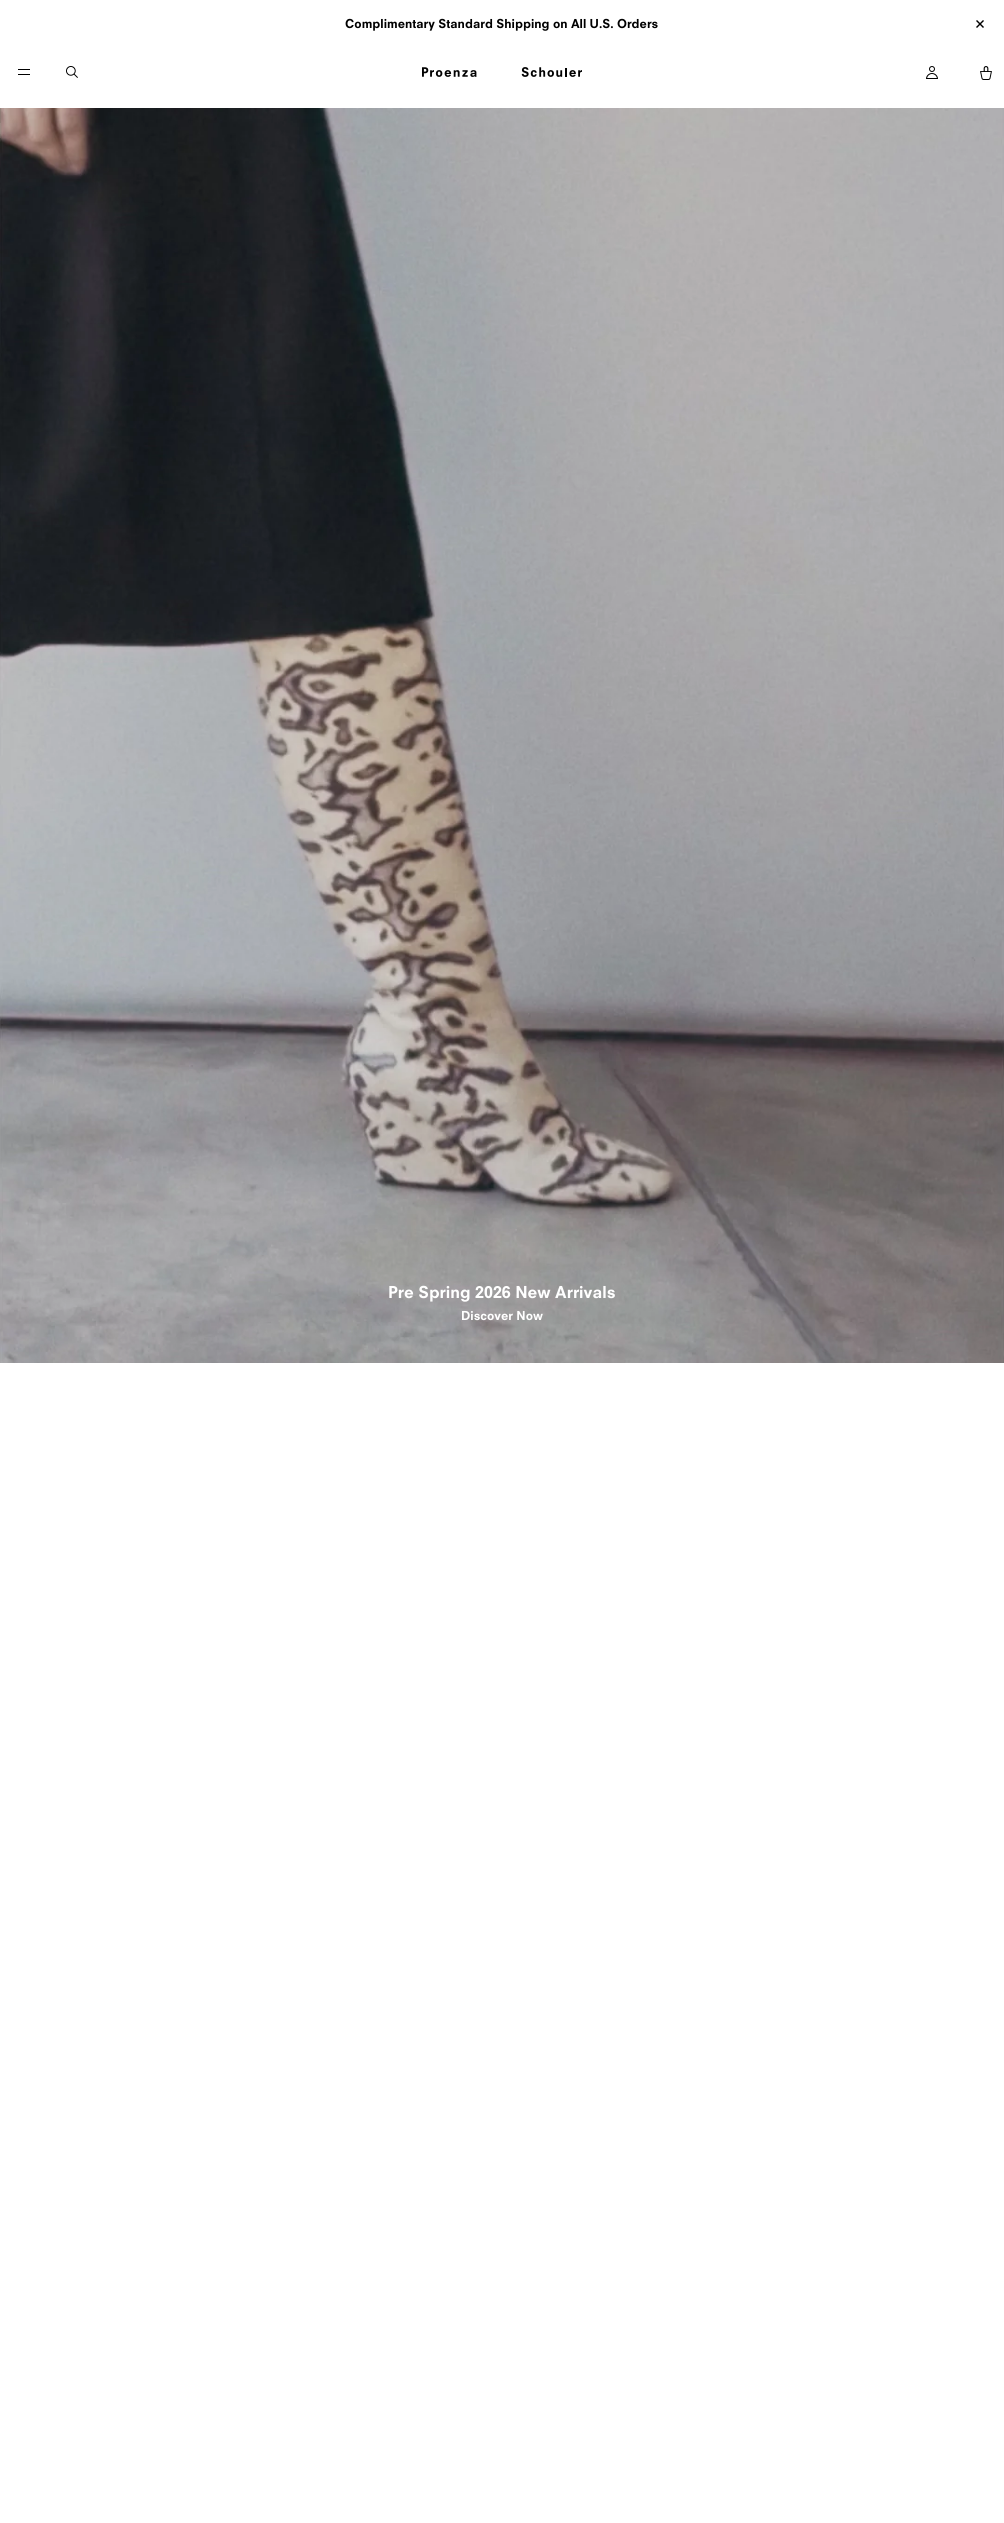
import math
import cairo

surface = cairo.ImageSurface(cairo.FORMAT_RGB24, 1004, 2523)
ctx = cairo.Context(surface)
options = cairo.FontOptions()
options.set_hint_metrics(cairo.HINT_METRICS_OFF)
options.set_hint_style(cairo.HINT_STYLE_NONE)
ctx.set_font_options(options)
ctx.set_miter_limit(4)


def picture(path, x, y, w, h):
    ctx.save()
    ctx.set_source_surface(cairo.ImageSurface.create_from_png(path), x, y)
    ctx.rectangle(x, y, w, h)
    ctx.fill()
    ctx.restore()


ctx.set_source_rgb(1, 1, 1)
ctx.paint()
ctx.select_font_face("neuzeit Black")
ctx.set_font_size(12)
ctx.set_source_rgb(0, 0, 0)
ctx.move_to(345, 28)
ctx.show_text("Complimentary Standard Shipping on All U.S. Orders")
ctx.new_path()
ctx.move_to(976, 27)
ctx.line_to(983, 20)
ctx.line_to(984, 21)
ctx.line_to(977, 28)
ctx.close_path()
ctx.fill()
ctx.new_path()
ctx.move_to(977, 20)
ctx.line_to(984, 27)
ctx.line_to(983, 28)
ctx.line_to(976, 21)
ctx.close_path()
ctx.fill()
ctx.rectangle(18, 69, 12, 1)
ctx.fill()
ctx.rectangle(18, 74, 12, 1)
ctx.fill()
picture("img1.png", 66, 66, 12, 12)
picture("img2.png", 422, 67, 160, 10)
picture("img3.png", 926, 66, 12, 13)
picture("img4.png", 980, 66, 12, 14)
picture("img5.png", 0, 108, 1004, 1255)
ctx.set_font_size(16)
ctx.set_source_rgb(1, 1, 1)
ctx.move_to(388, 1298)
ctx.show_text("Pre Spring 2026 New Arrivals")
ctx.set_font_size(12)
ctx.move_to(461, 1320)
ctx.show_text("Discover Now")
surface.write_to_png("page.png")
